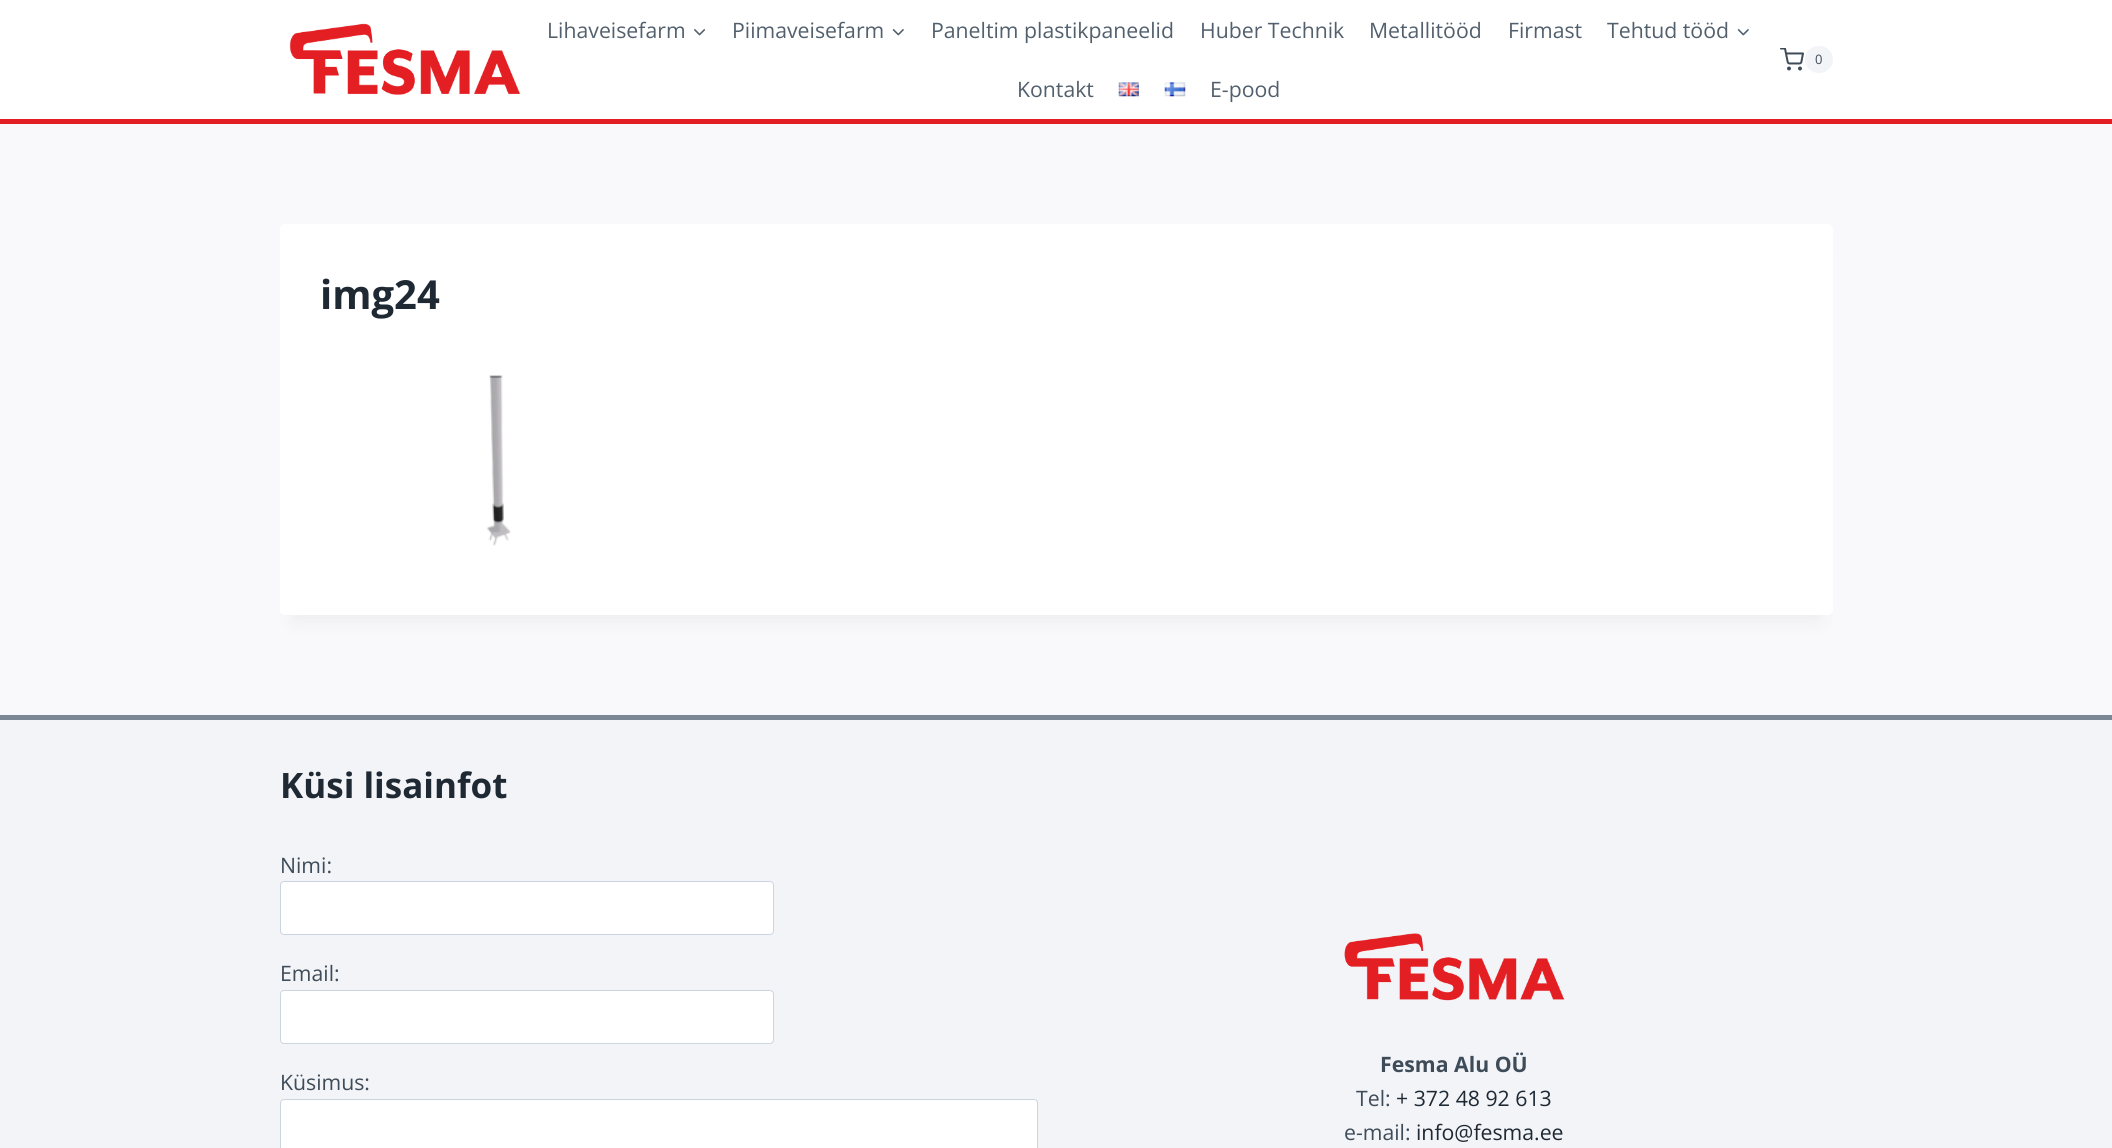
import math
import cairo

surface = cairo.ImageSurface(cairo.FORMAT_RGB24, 2112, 1148)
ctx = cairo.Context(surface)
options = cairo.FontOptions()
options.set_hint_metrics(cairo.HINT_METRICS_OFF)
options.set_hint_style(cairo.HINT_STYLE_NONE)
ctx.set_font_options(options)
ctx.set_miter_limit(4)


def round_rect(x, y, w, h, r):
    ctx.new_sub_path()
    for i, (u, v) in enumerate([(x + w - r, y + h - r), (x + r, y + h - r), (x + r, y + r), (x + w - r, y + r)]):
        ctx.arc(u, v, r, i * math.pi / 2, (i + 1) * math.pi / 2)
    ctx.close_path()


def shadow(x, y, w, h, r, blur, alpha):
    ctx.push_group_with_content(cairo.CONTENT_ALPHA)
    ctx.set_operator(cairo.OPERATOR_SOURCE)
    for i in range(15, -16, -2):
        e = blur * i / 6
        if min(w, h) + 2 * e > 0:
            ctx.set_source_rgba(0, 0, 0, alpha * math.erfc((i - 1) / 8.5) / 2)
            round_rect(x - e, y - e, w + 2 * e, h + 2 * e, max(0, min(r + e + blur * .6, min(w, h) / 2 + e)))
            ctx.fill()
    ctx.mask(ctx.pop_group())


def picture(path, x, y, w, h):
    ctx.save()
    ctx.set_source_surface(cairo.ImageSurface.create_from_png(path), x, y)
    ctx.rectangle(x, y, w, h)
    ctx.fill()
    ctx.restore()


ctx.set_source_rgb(0.976, 0.976, 0.984)
ctx.paint()
ctx.set_source_rgb(1, 1, 1)
ctx.rectangle(0, 0, 2112, 119)
ctx.fill()
ctx.set_source_rgb(0.89, 0.122, 0.141)
ctx.rectangle(0, 119, 2112, 5)
ctx.fill()
picture("img1.png", 289, 23, 232, 72)
ctx.select_font_face("Open Sans")
ctx.set_font_size(21.25)
ctx.set_source_rgb(0.322, 0.376, 0.427)
ctx.move_to(547, 38)
ctx.show_text("Lihaveisefarm")
picture("img2.png", 694, 29, 12, 7)
ctx.move_to(732, 38)
ctx.show_text("Piimaveisefarm")
picture("img3.png", 892, 29, 12, 7)
ctx.move_to(931, 38)
ctx.show_text("Paneltim plastikpaneelid")
ctx.move_to(1200, 38)
ctx.show_text("Huber Technik")
ctx.move_to(1369, 38)
ctx.show_text("Metallitööd")
ctx.move_to(1508, 38)
ctx.show_text("Firmast")
ctx.move_to(1607, 38)
ctx.show_text("Tehtud tööd")
picture("img3.png", 1737, 29, 12, 7)
ctx.move_to(1017, 97)
ctx.show_text("Kontakt")
picture("img4.png", 1118, 82, 21, 15)
picture("img5.png", 1164, 82, 22, 15)
ctx.move_to(1210, 97)
ctx.show_text("E-pood")
picture("img6.png", 1780, 48, 24, 23)
ctx.set_source_rgb(0.953, 0.957, 0.969)
round_rect(1805, 46, 28, 27, 13.5)
ctx.fill()
ctx.set_font_size(13)
ctx.set_source_rgb(0.243, 0.298, 0.349)
ctx.move_to(1815, 64)
ctx.show_text("0")
ctx.set_source_rgb(0, 0, 0)
shadow(293, 255, 1527, 366, 0, 9.5, 0.05)
ctx.set_source_rgb(1, 1, 1)
round_rect(280, 224, 1553, 391, 5)
ctx.fill()
ctx.select_font_face("Open Sans", cairo.FONT_SLANT_NORMAL, cairo.FONT_WEIGHT_BOLD)
ctx.set_font_size(40)
ctx.set_source_rgb(0.122, 0.161, 0.2)
ctx.move_to(320, 309)
ctx.show_text("img24")
picture("img7.png", 487, 375, 24, 171)
ctx.set_source_rgb(0.953, 0.957, 0.969)
ctx.rectangle(0, 720, 2112, 428)
ctx.fill()
ctx.set_source_rgb(0.482, 0.529, 0.58)
ctx.rectangle(0, 715, 2112, 5)
ctx.fill()
ctx.set_font_size(35)
ctx.set_source_rgb(0.122, 0.161, 0.2)
ctx.move_to(280, 798)
ctx.show_text("Küsi lisainfot")
ctx.select_font_face("Open Sans")
ctx.set_font_size(21.25)
ctx.set_source_rgb(0.243, 0.298, 0.349)
ctx.move_to(280, 873)
ctx.show_text("Nimi:")
ctx.set_source_rgb(1, 1, 1)
round_rect(280.5, 881.5, 493, 53, 3.5)
ctx.fill_preserve()
ctx.set_source_rgb(0.796, 0.835, 0.878)
ctx.set_line_width(1)
ctx.stroke()
ctx.set_source_rgb(0.243, 0.298, 0.349)
ctx.move_to(280, 981)
ctx.show_text("Email:")
ctx.set_source_rgb(1, 1, 1)
round_rect(280.5, 990.5, 493, 53, 3.5)
ctx.fill_preserve()
ctx.set_source_rgb(0.796, 0.835, 0.878)
ctx.stroke()
ctx.set_source_rgb(0.243, 0.298, 0.349)
ctx.move_to(280, 1090)
ctx.show_text("Küsimus:")
ctx.set_source_rgb(1, 1, 1)
round_rect(280.5, 1099.5, 757, 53, 3.5)
ctx.fill_preserve()
ctx.set_source_rgb(0.796, 0.835, 0.878)
ctx.stroke()
picture("img8.png", 1344, 933, 221, 68)
ctx.select_font_face("Open Sans", cairo.FONT_SLANT_NORMAL, cairo.FONT_WEIGHT_BOLD)
ctx.set_source_rgb(0.243, 0.298, 0.349)
ctx.move_to(1380, 1072)
ctx.show_text("Fesma Alu OÜ")
ctx.select_font_face("Open Sans")
ctx.move_to(1356, 1106)
ctx.show_text("Tel:")
ctx.set_source_rgb(0.122, 0.161, 0.2)
ctx.move_to(1396, 1106)
ctx.show_text("+ 372 48 92 613")
ctx.set_source_rgb(0.243, 0.298, 0.349)
ctx.move_to(1344, 1140)
ctx.show_text("e-mail:")
ctx.set_source_rgb(0.122, 0.161, 0.2)
ctx.move_to(1416, 1140)
ctx.show_text("info@fesma.ee")
surface.write_to_png("page.png")
